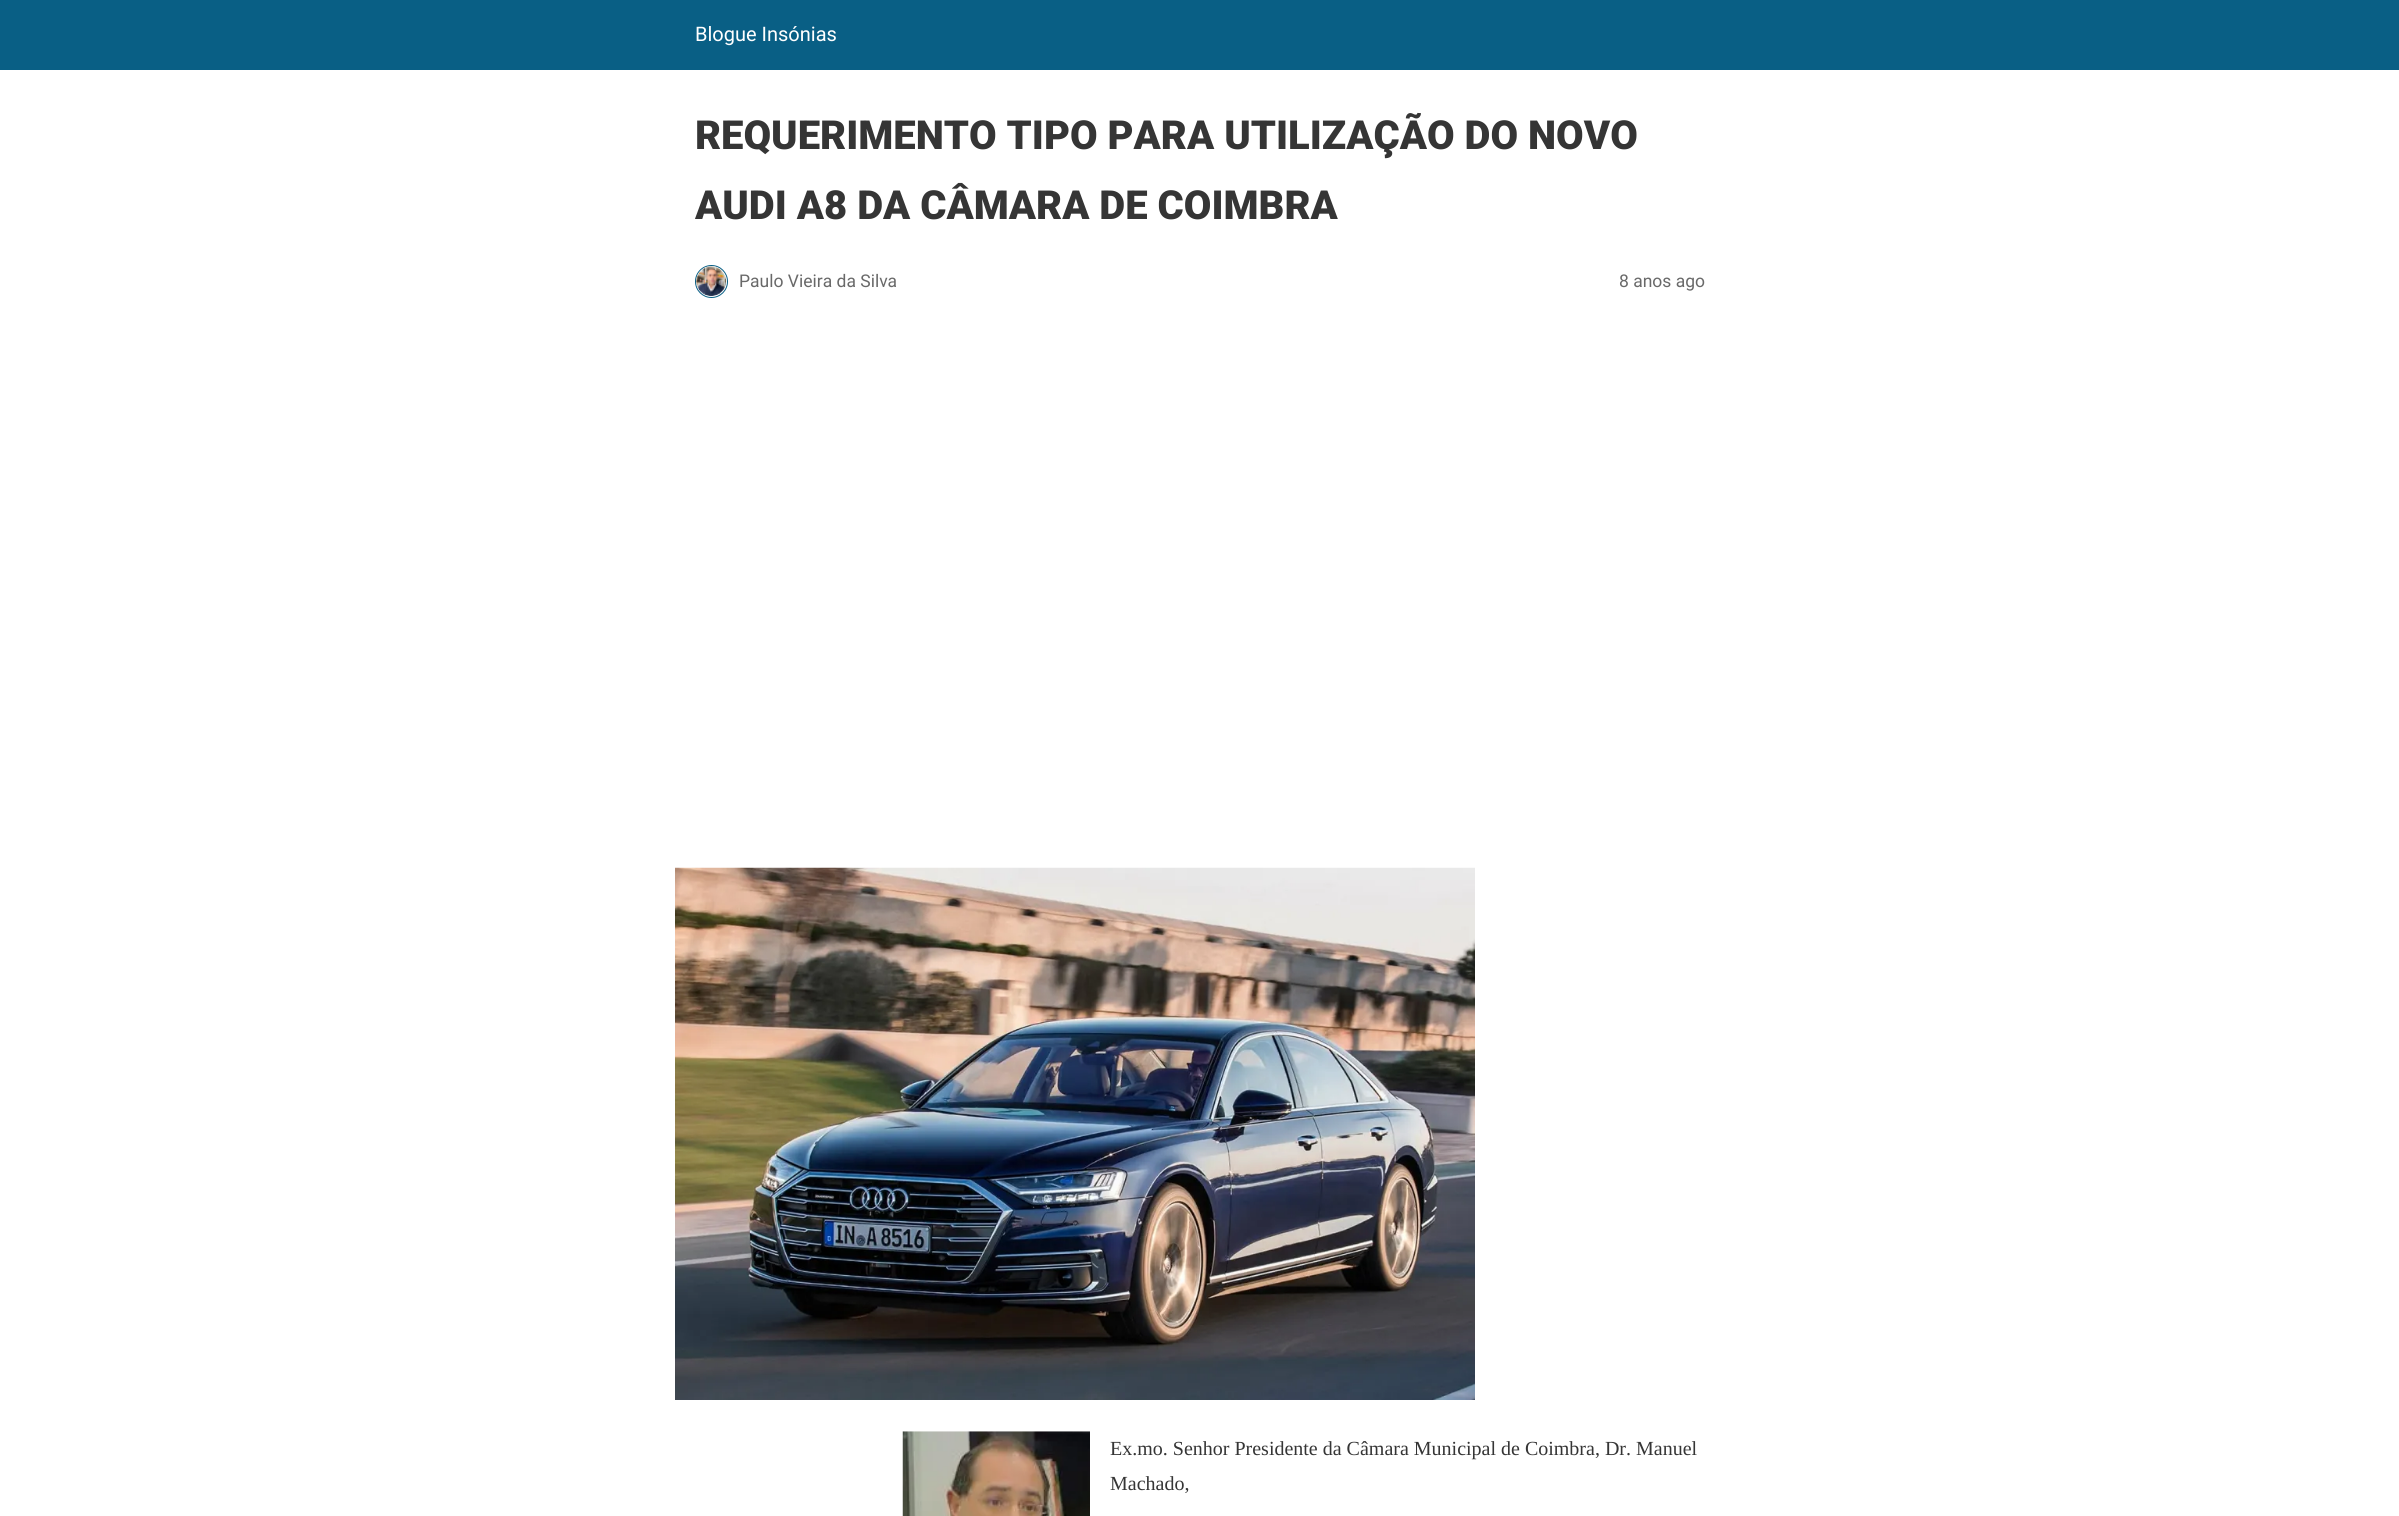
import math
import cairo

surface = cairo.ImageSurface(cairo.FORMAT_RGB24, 2399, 1516)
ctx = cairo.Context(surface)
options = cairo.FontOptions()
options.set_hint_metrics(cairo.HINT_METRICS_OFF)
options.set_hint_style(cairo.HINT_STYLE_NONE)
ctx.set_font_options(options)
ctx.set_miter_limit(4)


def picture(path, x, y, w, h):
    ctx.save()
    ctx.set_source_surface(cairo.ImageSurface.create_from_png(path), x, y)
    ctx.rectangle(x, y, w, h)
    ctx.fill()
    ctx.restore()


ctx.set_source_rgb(1, 1, 1)
ctx.paint()
ctx.set_source_rgb(0.039, 0.373, 0.522)
ctx.rectangle(0, 0, 2399, 70)
ctx.fill()
ctx.select_font_face("Roboto")
ctx.set_font_size(20)
ctx.set_source_rgb(1, 1, 1)
ctx.move_to(695, 41)
ctx.show_text("Blogue Insónias")
ctx.select_font_face("Roboto Black")
ctx.set_font_size(40)
ctx.set_source_rgb(0.208, 0.208, 0.208)
ctx.move_to(695, 149)
ctx.show_text("REQUERIMENTO TIPO PARA UTILIZAÇÃO DO NOVO")
ctx.move_to(695, 219)
ctx.show_text("AUDI A8 DA CÂMARA DE COIMBRA")
ctx.new_path()
ctx.arc(711.5, 281.5, 16, 0, 2 * math.pi)
ctx.set_source_rgb(0.039, 0.373, 0.522)
ctx.set_line_width(1)
ctx.stroke()
picture("img1.png", 696, 266, 31, 31)
ctx.select_font_face("Roboto")
ctx.set_font_size(17.5)
ctx.set_source_rgb(0.412, 0.412, 0.412)
ctx.move_to(739, 287)
ctx.show_text("Paulo Vieira da Silva")
ctx.move_to(1619, 287)
ctx.show_text("8 anos ago")
picture("img2.png", 675, 867, 800, 533)
picture("img3.png", 902, 1431, 188, 85)
ctx.select_font_face("Liberation Serif")
ctx.set_font_size(20)
ctx.set_source_rgb(0.208, 0.208, 0.208)
ctx.move_to(1110, 1455)
ctx.show_text("Ex.mo. Senhor Presidente da Câmara Municipal de Coimbra, Dr. Manuel")
ctx.move_to(1110, 1490)
ctx.show_text("Machado,")
surface.write_to_png("page.png")
